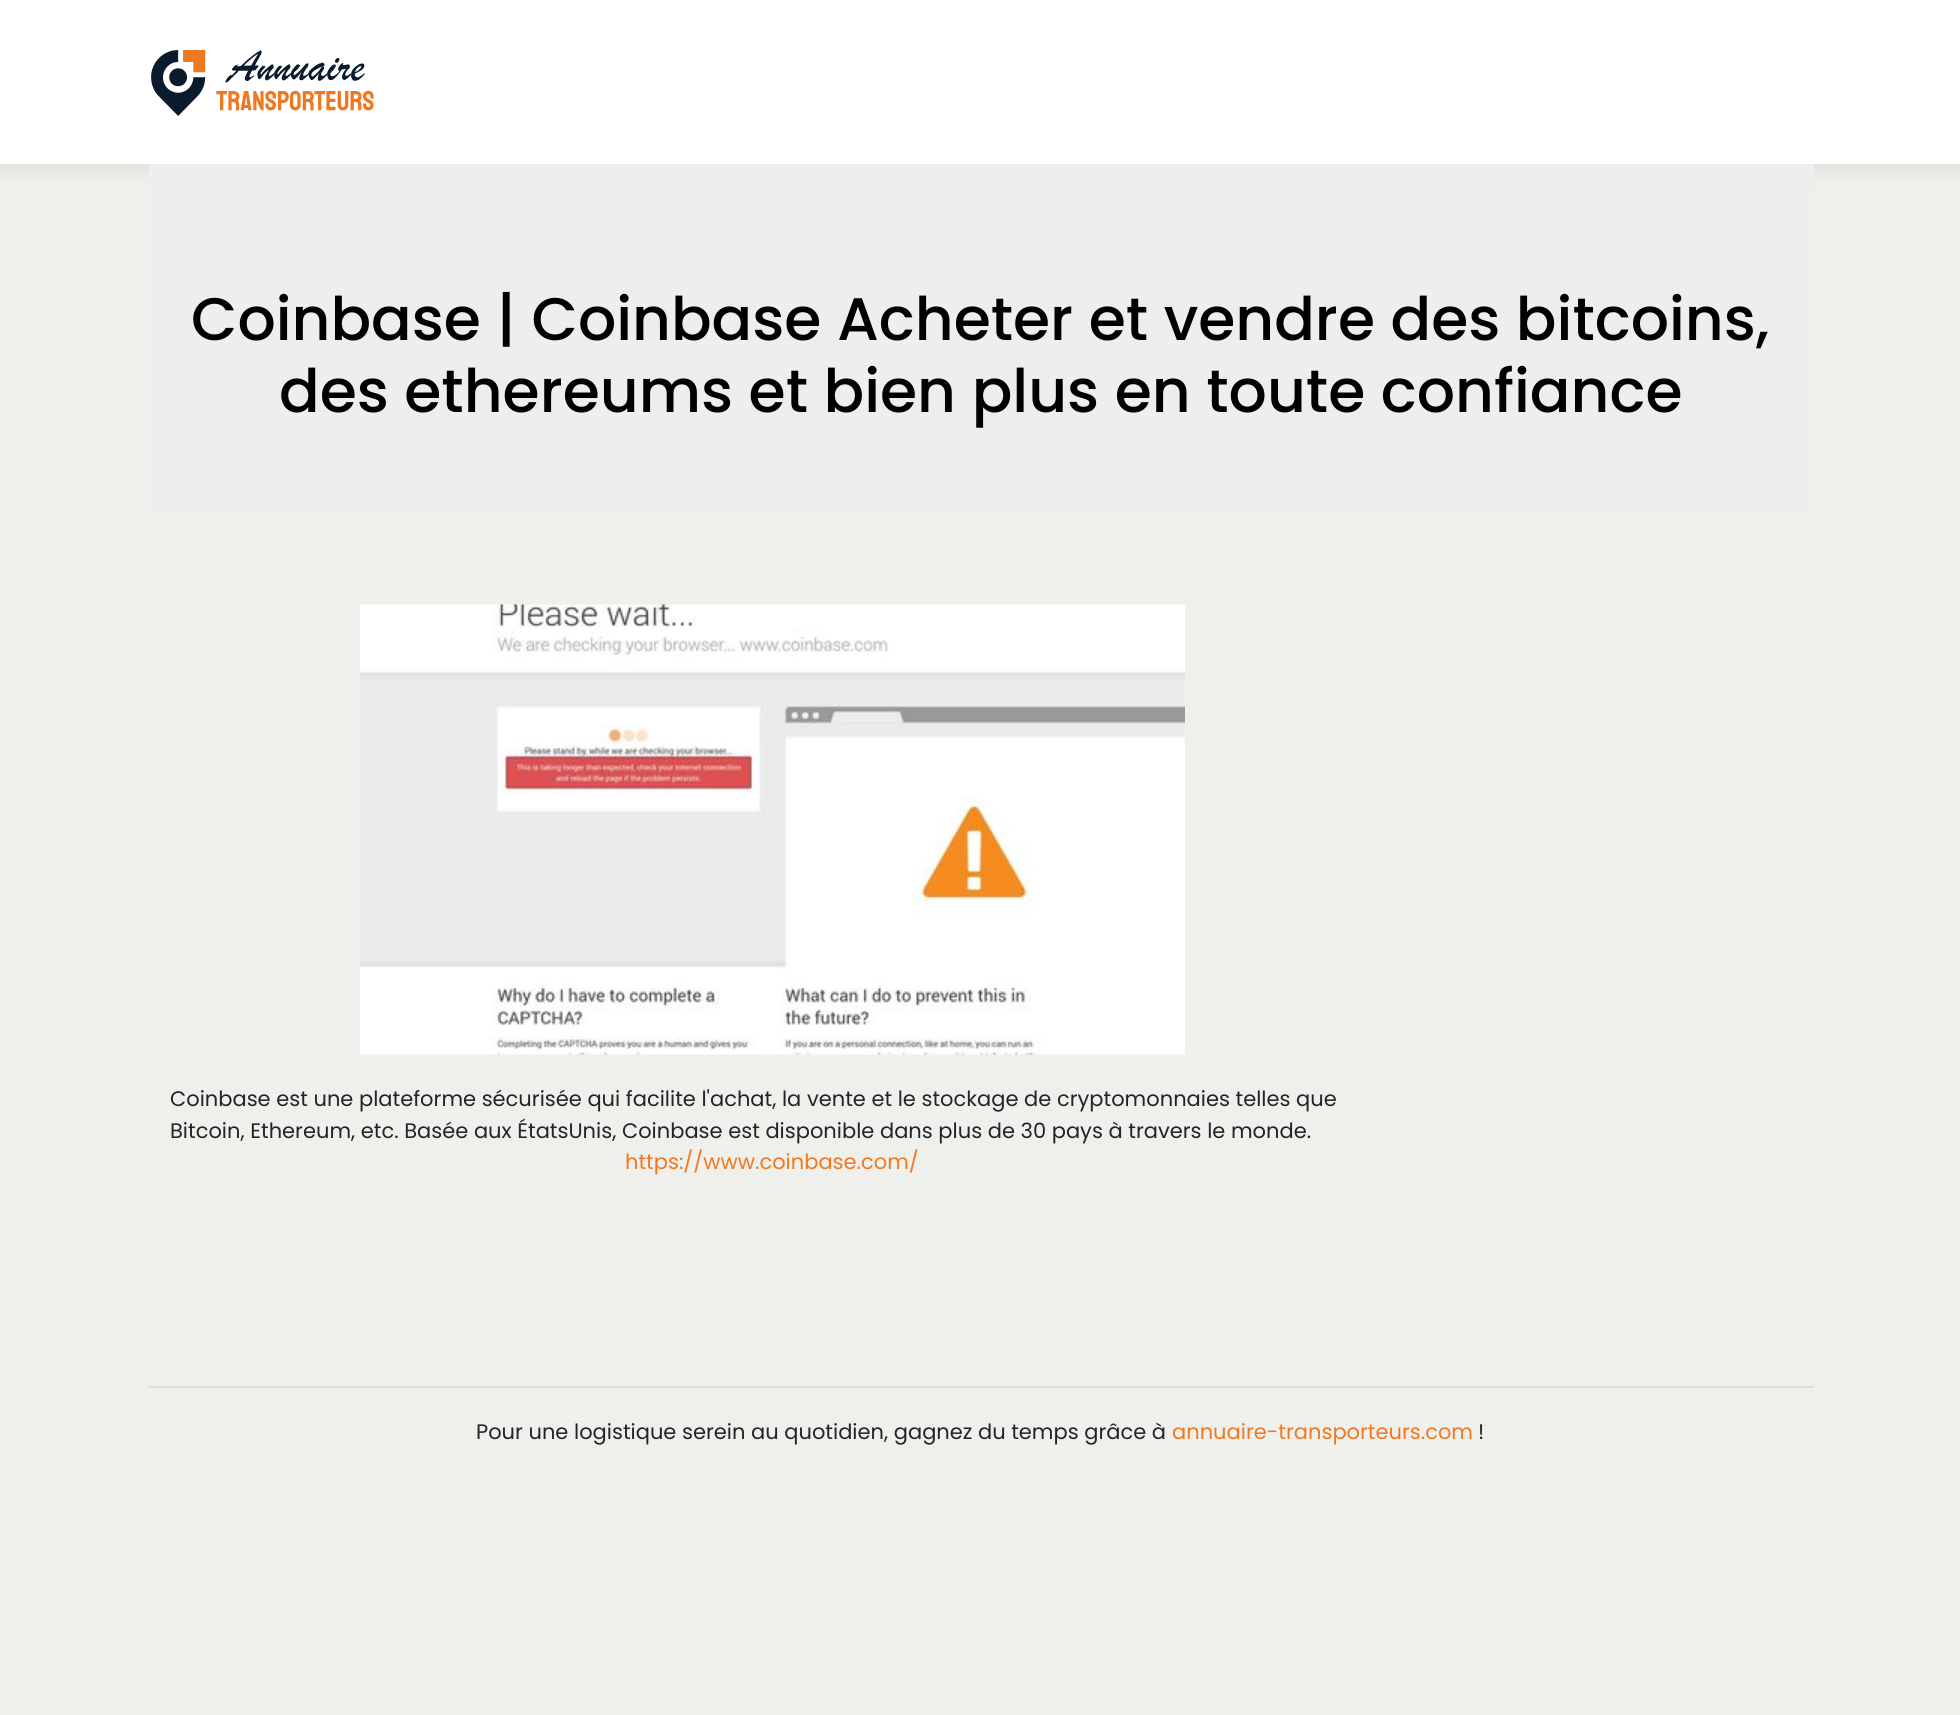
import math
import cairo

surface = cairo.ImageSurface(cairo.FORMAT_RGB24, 1960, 1715)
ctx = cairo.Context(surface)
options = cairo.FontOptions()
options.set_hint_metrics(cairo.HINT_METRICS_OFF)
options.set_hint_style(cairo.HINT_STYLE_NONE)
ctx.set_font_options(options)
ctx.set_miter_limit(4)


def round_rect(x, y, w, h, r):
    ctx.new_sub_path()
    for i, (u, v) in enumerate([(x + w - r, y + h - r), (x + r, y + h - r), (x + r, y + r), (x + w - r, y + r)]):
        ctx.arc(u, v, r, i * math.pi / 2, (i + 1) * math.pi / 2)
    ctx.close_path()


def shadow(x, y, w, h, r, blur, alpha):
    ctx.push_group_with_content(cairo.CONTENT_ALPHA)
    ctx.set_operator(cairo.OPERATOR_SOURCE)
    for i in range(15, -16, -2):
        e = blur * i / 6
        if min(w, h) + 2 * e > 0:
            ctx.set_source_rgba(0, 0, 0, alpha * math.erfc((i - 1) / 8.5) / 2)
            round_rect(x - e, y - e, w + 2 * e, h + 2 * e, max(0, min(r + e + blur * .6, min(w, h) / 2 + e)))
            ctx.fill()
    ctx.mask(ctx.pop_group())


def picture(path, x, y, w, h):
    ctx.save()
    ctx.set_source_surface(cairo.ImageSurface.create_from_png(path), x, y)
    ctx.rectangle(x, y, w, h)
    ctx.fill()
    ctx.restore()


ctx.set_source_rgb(0.937, 0.937, 0.922)
ctx.paint()
ctx.set_source_rgb(0, 0, 0)
shadow(0, 3, 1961, 164, 0, 10, 0.1)
ctx.set_source_rgb(1, 1, 1)
ctx.rectangle(0, 0, 1960, 164)
ctx.fill()
picture("img1.png", 151, 50, 223, 66)
ctx.set_source_rgb(0.933, 0.933, 0.933)
ctx.rectangle(149, 164, 1665, 351)
ctx.fill()
ctx.select_font_face("Poppins Medium")
ctx.set_font_size(60)
ctx.set_source_rgb(0, 0, 0)
ctx.move_to(191, 340)
ctx.show_text("Coinbase | Coinbase Acheter et vendre des bitcoins,")
ctx.move_to(279, 412)
ctx.show_text("des ethereums et bien plus en toute confiance")
picture("img2.png", 360, 604, 825, 451)
ctx.select_font_face("Poppins")
ctx.set_font_size(21)
ctx.set_source_rgb(0.129, 0.145, 0.161)
ctx.move_to(170, 1106)
ctx.show_text("Coinbase est une plateforme sécurisée qui facilite l'achat, la vente et le stockage de cryptomonnaies telles que")
ctx.move_to(170, 1138)
ctx.show_text("Bitcoin, Ethereum, etc. Basée aux ÉtatsUnis, Coinbase est disponible dans plus de 30 pays à travers le monde.")
ctx.set_source_rgb(0.937, 0.475, 0.133)
ctx.move_to(625, 1169)
ctx.show_text("https://www.coinbase.com/")
ctx.set_source_rgb(0.867, 0.867, 0.867)
ctx.rectangle(149, 1386, 1665, 2)
ctx.fill()
ctx.set_source_rgb(0.129, 0.145, 0.161)
ctx.move_to(476, 1439)
ctx.show_text("Pour une logistique serein au quotidien, gagnez du temps grâce à")
ctx.set_source_rgb(0.937, 0.475, 0.133)
ctx.move_to(1172, 1439)
ctx.show_text("annuaire-transporteurs.com")
ctx.set_source_rgb(0.129, 0.145, 0.161)
ctx.move_to(1478, 1439)
ctx.show_text("!")
surface.write_to_png("page.png")
